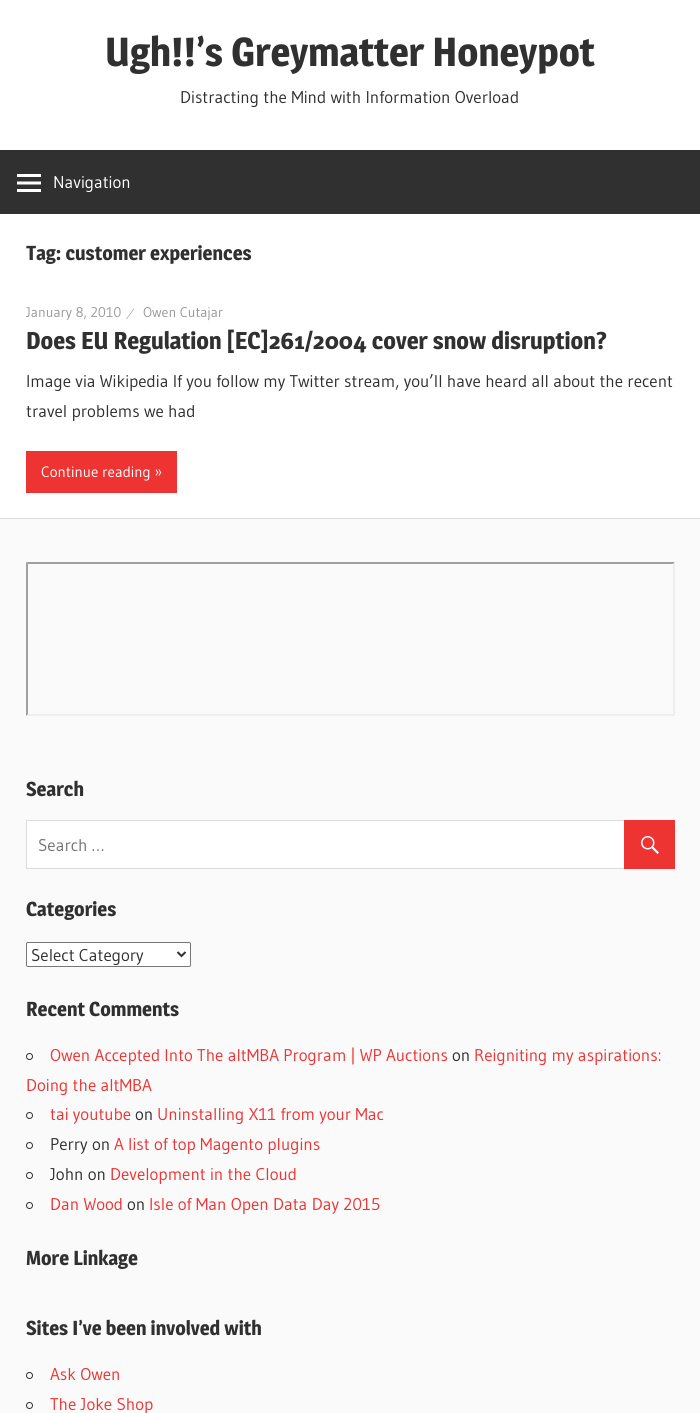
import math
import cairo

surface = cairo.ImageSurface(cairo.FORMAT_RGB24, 700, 1413)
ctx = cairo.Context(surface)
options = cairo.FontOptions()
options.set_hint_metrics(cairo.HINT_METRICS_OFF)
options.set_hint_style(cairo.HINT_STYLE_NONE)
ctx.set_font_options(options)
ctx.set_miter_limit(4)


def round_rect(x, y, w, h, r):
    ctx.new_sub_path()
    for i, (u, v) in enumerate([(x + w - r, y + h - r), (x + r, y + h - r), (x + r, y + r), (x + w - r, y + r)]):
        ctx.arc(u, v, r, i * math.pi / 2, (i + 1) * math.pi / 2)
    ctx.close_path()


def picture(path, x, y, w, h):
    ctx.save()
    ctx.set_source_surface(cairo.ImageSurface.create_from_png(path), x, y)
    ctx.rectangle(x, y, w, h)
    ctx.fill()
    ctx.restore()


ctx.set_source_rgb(1, 1, 1)
ctx.paint()
ctx.select_font_face("Magra SemiBold")
ctx.set_font_size(40)
ctx.set_source_rgb(0.188, 0.188, 0.188)
ctx.move_to(105, 66)
ctx.show_text("Ugh!!’s Greymatter Honeypot")
ctx.select_font_face("Gudea")
ctx.set_font_size(17)
ctx.move_to(180, 103)
ctx.show_text("Distracting the Mind with Information Overload")
ctx.rectangle(0, 150, 700, 64)
ctx.fill()
picture("img1.png", 17, 174, 24, 18)
ctx.set_source_rgb(1, 1, 1)
ctx.move_to(53, 188)
ctx.show_text("Navigation")
ctx.select_font_face("Magra SemiBold")
ctx.set_font_size(20)
ctx.set_source_rgb(0.188, 0.188, 0.188)
ctx.move_to(26, 260)
ctx.show_text("Tag: customer experiences")
ctx.select_font_face("Gudea")
ctx.set_font_size(14)
ctx.set_source_rgb(0.6, 0.6, 0.6)
ctx.move_to(26, 317)
ctx.show_text("January 8, 2010")
ctx.select_font_face("Liberation Serif")
ctx.set_font_size(16)
ctx.move_to(129, 319)
ctx.show_text("⁄")
ctx.select_font_face("Gudea")
ctx.set_font_size(14)
ctx.move_to(143, 317)
ctx.show_text("Owen Cutajar")
ctx.select_font_face("Magra SemiBold")
ctx.set_font_size(24)
ctx.set_source_rgb(0.188, 0.188, 0.188)
ctx.move_to(26, 349)
ctx.show_text("Does EU Regulation [EC]261/2004 cover snow disruption?")
ctx.select_font_face("Gudea")
ctx.set_font_size(17)
ctx.move_to(26, 387)
ctx.show_text("Image via Wikipedia If you follow my Twitter stream, you’ll have heard all about the recent")
ctx.move_to(26, 417)
ctx.show_text("travel problems we had")
ctx.set_source_rgb(0.933, 0.2, 0.2)
ctx.rectangle(26, 451, 151, 42)
ctx.fill()
ctx.set_font_size(15)
ctx.set_source_rgb(1, 1, 1)
ctx.move_to(41, 477)
ctx.show_text("Continue reading »")
ctx.set_source_rgb(0.98, 0.98, 0.98)
ctx.rectangle(0, 519, 700, 894)
ctx.fill()
ctx.set_source_rgb(0.867, 0.867, 0.867)
ctx.rectangle(0, 518, 700, 1)
ctx.fill()
ctx.set_source_rgb(0.624, 0.624, 0.624)
ctx.new_path()
ctx.move_to(26, 562)
ctx.line_to(675, 562)
ctx.line_to(673, 564)
ctx.line_to(28, 564)
ctx.close_path()
ctx.fill()
ctx.set_source_rgb(0.933, 0.933, 0.933)
ctx.new_path()
ctx.move_to(675, 562)
ctx.line_to(675, 716)
ctx.line_to(673, 714)
ctx.line_to(673, 564)
ctx.close_path()
ctx.fill()
ctx.new_path()
ctx.move_to(675, 716)
ctx.line_to(26, 716)
ctx.line_to(28, 714)
ctx.line_to(673, 714)
ctx.close_path()
ctx.fill()
ctx.set_source_rgb(0.624, 0.624, 0.624)
ctx.new_path()
ctx.move_to(26, 716)
ctx.line_to(26, 562)
ctx.line_to(28, 564)
ctx.line_to(28, 714)
ctx.close_path()
ctx.fill()
ctx.select_font_face("Magra SemiBold")
ctx.set_font_size(20)
ctx.set_source_rgb(0.188, 0.188, 0.188)
ctx.move_to(26, 796)
ctx.show_text("Search")
ctx.set_source_rgb(1, 1, 1)
ctx.rectangle(27, 821, 597, 47)
ctx.fill()
ctx.rectangle(26.5, 820.5, 648, 48)
ctx.set_source_rgb(0.867, 0.867, 0.867)
ctx.set_line_width(1)
ctx.stroke()
ctx.select_font_face("Gudea")
ctx.set_font_size(17)
ctx.set_source_rgb(0.459, 0.459, 0.459)
ctx.move_to(38, 851)
ctx.show_text("Search …")
ctx.set_source_rgb(0.933, 0.2, 0.2)
ctx.rectangle(624, 820, 51, 49)
ctx.fill()
picture("img2.png", 641, 836, 18, 18)
ctx.select_font_face("Magra SemiBold")
ctx.set_font_size(20)
ctx.set_source_rgb(0.188, 0.188, 0.188)
ctx.move_to(26, 916)
ctx.show_text("Categories")
ctx.set_source_rgb(1, 1, 1)
round_rect(26.5, 942.5, 164, 24, 1.5)
ctx.fill_preserve()
ctx.set_source_rgb(0.463, 0.463, 0.463)
ctx.stroke()
ctx.new_path()
ctx.move_to(177.5, 952)
ctx.line_to(181.5, 956)
ctx.line_to(185.5, 952)
ctx.set_source_rgb(0.188, 0.188, 0.188)
ctx.set_line_width(2)
ctx.stroke()
ctx.select_font_face("Gudea")
ctx.set_font_size(17)
ctx.move_to(31, 961)
ctx.show_text("Select Category")
ctx.select_font_face("Magra SemiBold")
ctx.set_font_size(20)
ctx.move_to(26, 1016)
ctx.show_text("Recent Comments")
ctx.new_path()
ctx.arc(29.5, 1056.5, 3, 0, 2 * math.pi)
ctx.set_line_width(1)
ctx.stroke()
ctx.select_font_face("Gudea")
ctx.set_font_size(17)
ctx.set_source_rgb(0.933, 0.2, 0.2)
ctx.move_to(50, 1061)
ctx.show_text("Owen Accepted Into The altMBA Program | WP Auctions")
ctx.set_source_rgb(0.188, 0.188, 0.188)
ctx.move_to(452, 1061)
ctx.show_text("on")
ctx.set_source_rgb(0.933, 0.2, 0.2)
ctx.move_to(474, 1061)
ctx.show_text("Reigniting my aspirations:")
ctx.move_to(26, 1091)
ctx.show_text("Doing the altMBA")
ctx.new_path()
ctx.arc(29.5, 1115.5, 3, 0, 2 * math.pi)
ctx.set_source_rgb(0.188, 0.188, 0.188)
ctx.stroke()
ctx.set_source_rgb(0.933, 0.2, 0.2)
ctx.move_to(50, 1120)
ctx.show_text("tai youtube")
ctx.set_source_rgb(0.188, 0.188, 0.188)
ctx.move_to(135, 1120)
ctx.show_text("on")
ctx.set_source_rgb(0.933, 0.2, 0.2)
ctx.move_to(157, 1120)
ctx.show_text("Uninstalling X11 from your Mac")
ctx.new_path()
ctx.arc(29.5, 1145.5, 3, 0, 2 * math.pi)
ctx.set_source_rgb(0.188, 0.188, 0.188)
ctx.stroke()
ctx.move_to(50, 1150)
ctx.show_text("Perry on")
ctx.set_source_rgb(0.933, 0.2, 0.2)
ctx.move_to(114, 1150)
ctx.show_text("A list of top Magento plugins")
ctx.new_path()
ctx.arc(29.5, 1175.5, 3, 0, 2 * math.pi)
ctx.set_source_rgb(0.188, 0.188, 0.188)
ctx.stroke()
ctx.move_to(50, 1180)
ctx.show_text("John on")
ctx.set_source_rgb(0.933, 0.2, 0.2)
ctx.move_to(110, 1180)
ctx.show_text("Development in the Cloud")
ctx.new_path()
ctx.arc(29.5, 1205.5, 3, 0, 2 * math.pi)
ctx.set_source_rgb(0.188, 0.188, 0.188)
ctx.stroke()
ctx.set_source_rgb(0.933, 0.2, 0.2)
ctx.move_to(50, 1210)
ctx.show_text("Dan Wood")
ctx.set_source_rgb(0.188, 0.188, 0.188)
ctx.move_to(127, 1210)
ctx.show_text("on")
ctx.set_source_rgb(0.933, 0.2, 0.2)
ctx.move_to(149, 1210)
ctx.show_text("Isle of Man Open Data Day 2015")
ctx.select_font_face("Magra SemiBold")
ctx.set_font_size(20)
ctx.set_source_rgb(0.188, 0.188, 0.188)
ctx.move_to(26, 1265)
ctx.show_text("More Linkage")
ctx.move_to(26, 1335)
ctx.show_text("Sites I’ve been involved with")
ctx.new_path()
ctx.arc(29.5, 1375.5, 3, 0, 2 * math.pi)
ctx.stroke()
ctx.select_font_face("Gudea")
ctx.set_font_size(17)
ctx.set_source_rgb(0.933, 0.2, 0.2)
ctx.move_to(50, 1380)
ctx.show_text("Ask Owen")
ctx.new_path()
ctx.arc(29.5, 1405.5, 3, 0, 2 * math.pi)
ctx.set_source_rgb(0.188, 0.188, 0.188)
ctx.stroke()
ctx.set_source_rgb(0.933, 0.2, 0.2)
ctx.move_to(50, 1410)
ctx.show_text("The Joke Shop")
surface.write_to_png("page.png")
